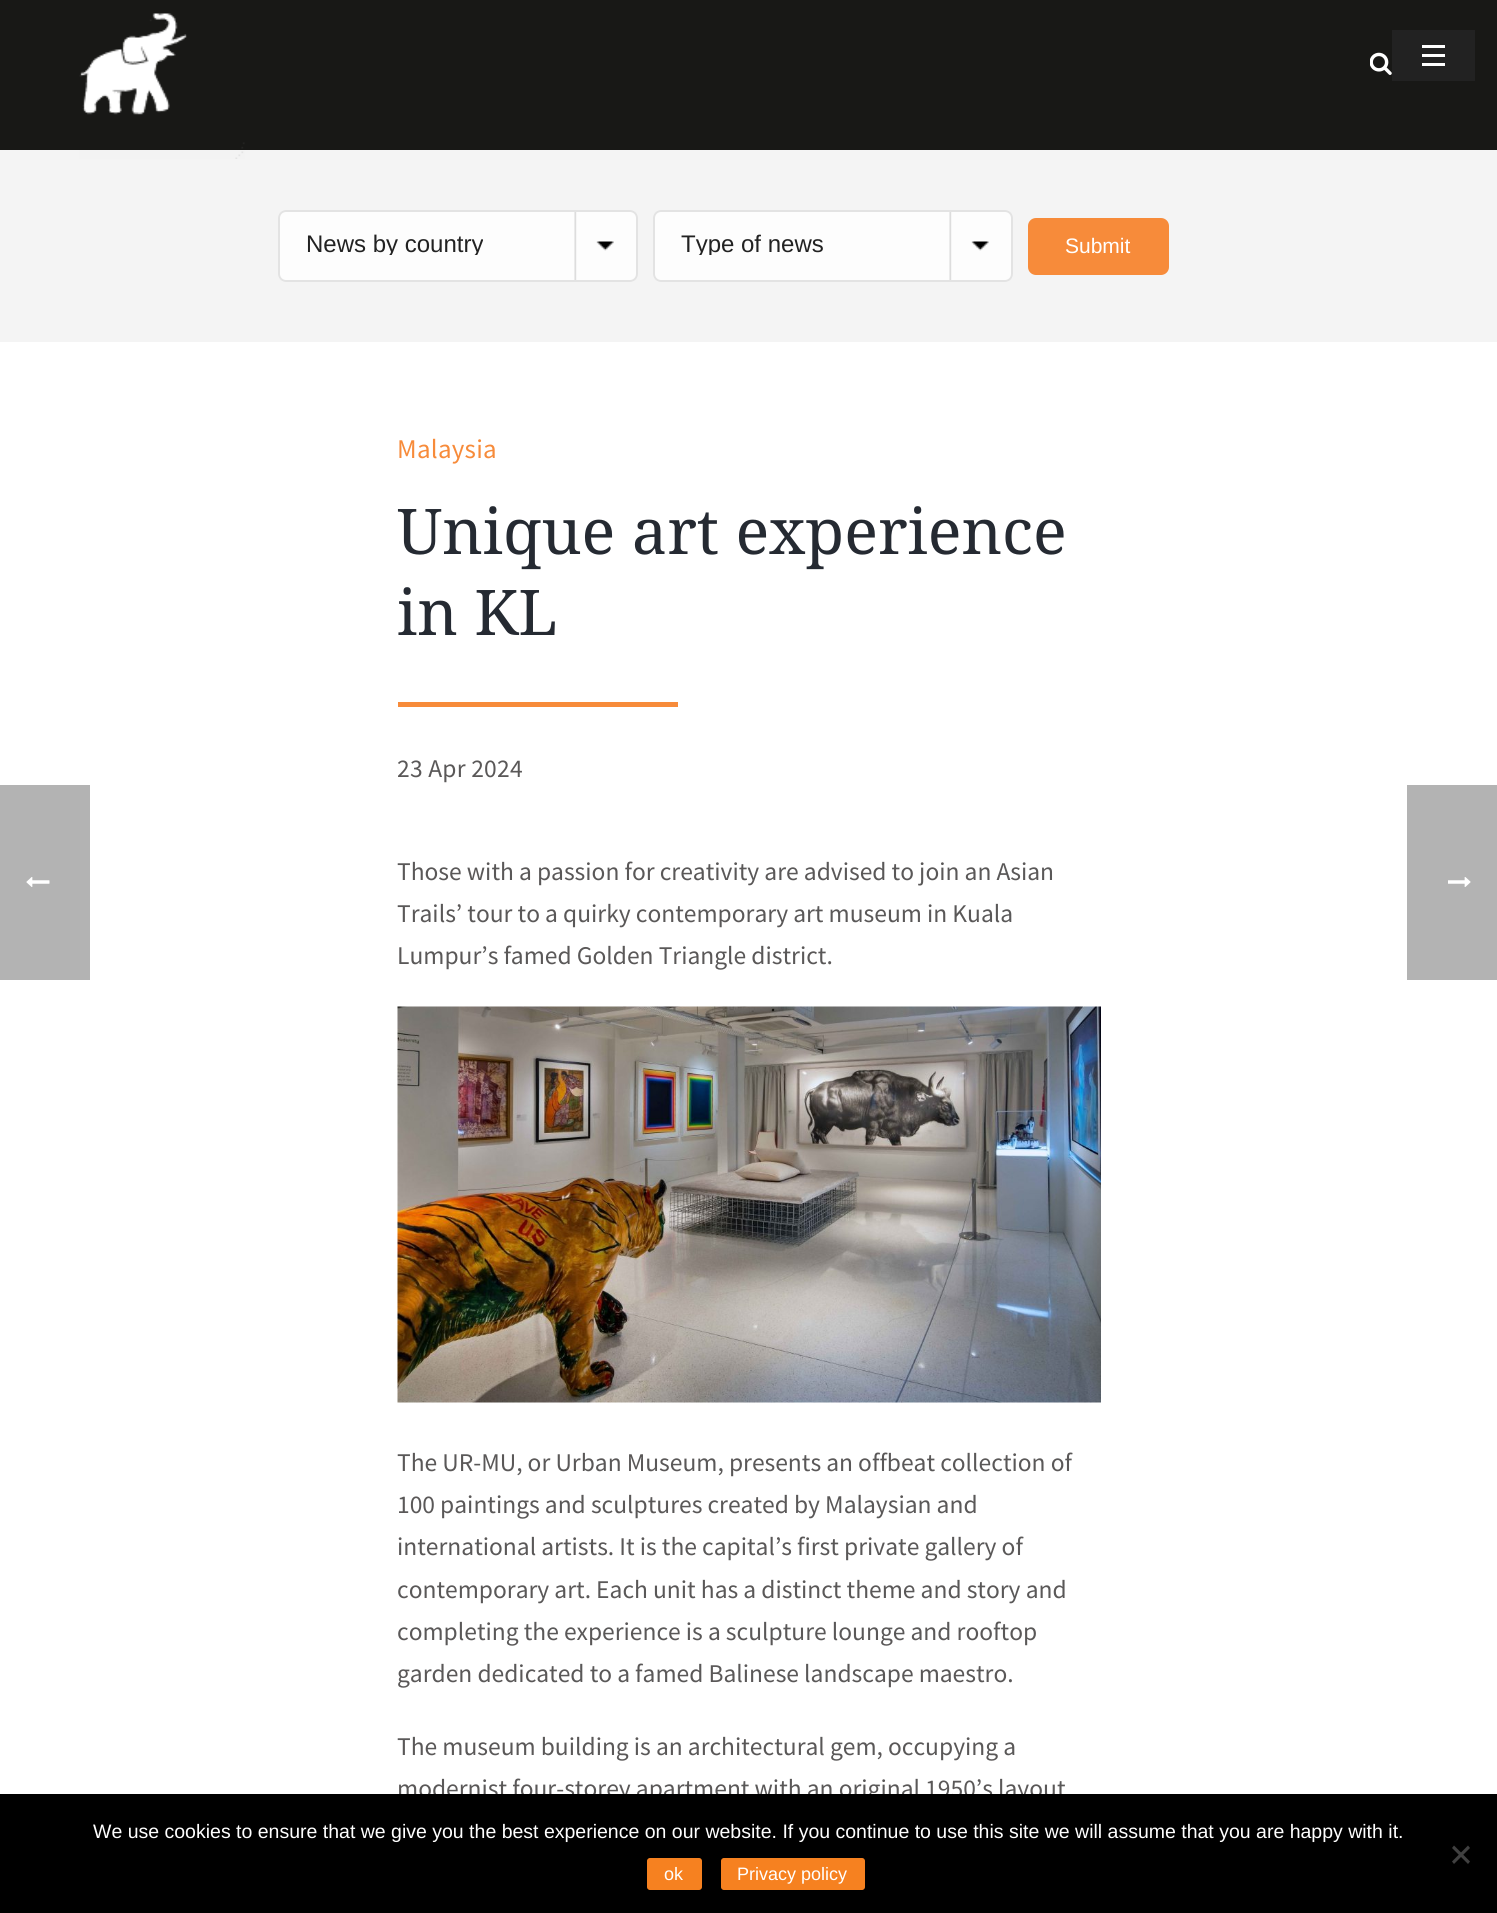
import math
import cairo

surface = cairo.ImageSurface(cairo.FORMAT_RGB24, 1497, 1913)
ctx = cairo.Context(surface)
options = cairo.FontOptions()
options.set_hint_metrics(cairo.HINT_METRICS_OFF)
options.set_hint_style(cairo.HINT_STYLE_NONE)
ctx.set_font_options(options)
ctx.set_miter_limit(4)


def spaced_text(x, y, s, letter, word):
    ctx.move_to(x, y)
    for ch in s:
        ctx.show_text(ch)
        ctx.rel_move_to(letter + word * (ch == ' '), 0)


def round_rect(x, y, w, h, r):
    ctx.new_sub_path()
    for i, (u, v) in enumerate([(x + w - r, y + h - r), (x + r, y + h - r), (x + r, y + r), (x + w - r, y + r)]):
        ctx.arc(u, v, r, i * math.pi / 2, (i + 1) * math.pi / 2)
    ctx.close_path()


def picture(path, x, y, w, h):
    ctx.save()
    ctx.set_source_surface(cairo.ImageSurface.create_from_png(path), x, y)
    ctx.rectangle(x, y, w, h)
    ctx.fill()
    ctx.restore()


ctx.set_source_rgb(1, 1, 1)
ctx.paint()
ctx.set_source_rgb(0.702, 0.702, 0.702)
ctx.rectangle(0, 785, 90, 195)
ctx.fill()
picture("img1.png", 26, 877, 24, 10)
ctx.set_source_rgb(0.094, 0.094, 0.086)
ctx.rectangle(0, 0, 1497, 150)
ctx.fill()
ctx.set_source_rgb(0.957, 0.957, 0.957)
ctx.rectangle(0, 150, 1497, 192)
ctx.fill()
picture("img2.png", 79, 13, 166, 146)
picture("img3.png", 1370, 52, 22, 23)
ctx.set_source_rgb(0.133, 0.133, 0.133)
ctx.rectangle(1392, 30, 83, 51)
ctx.fill()
ctx.set_source_rgb(1, 1, 1)
ctx.rectangle(1422, 54, 23, 3)
ctx.fill()
ctx.rectangle(1422, 45, 23, 3)
ctx.fill()
ctx.rectangle(1422, 63, 23, 3)
ctx.fill()
ctx.set_source_rgb(0.992, 0.992, 0.992)
round_rect(278, 210, 360, 72, 8)
ctx.fill()
picture("img4.png", 574, 212, 40, 68)
round_rect(279, 211, 358, 70, 7)
ctx.set_source_rgb(0.89, 0.89, 0.89)
ctx.stroke()
ctx.save()
ctx.rectangle(306, 234, 305, 21)
ctx.clip()
ctx.select_font_face("Liberation Sans")
ctx.set_font_size(24)
ctx.set_source_rgb(0.133, 0.133, 0.133)
ctx.move_to(306, 252)
ctx.show_text("News by country")
ctx.restore()
ctx.set_source_rgb(0.992, 0.992, 0.992)
round_rect(653, 210, 360, 72, 8)
ctx.fill()
picture("img5.png", 949, 212, 40, 68)
round_rect(654, 211, 358, 70, 7)
ctx.set_source_rgb(0.89, 0.89, 0.89)
ctx.stroke()
ctx.save()
ctx.rectangle(681, 234, 305, 21)
ctx.clip()
ctx.select_font_face("Liberation Sans")
ctx.set_font_size(24)
ctx.set_source_rgb(0.133, 0.133, 0.133)
ctx.move_to(681, 252)
ctx.show_text("Type of news")
ctx.restore()
ctx.set_source_rgb(0.965, 0.545, 0.227)
round_rect(1028, 218, 141, 57, 8)
ctx.fill()
ctx.select_font_face("Liberation Sans")
ctx.set_font_size(21)
ctx.set_source_rgb(1, 1, 1)
ctx.move_to(1065, 253)
ctx.show_text("Submit")
ctx.select_font_face("Source Sans Pro")
ctx.set_font_size(27)
ctx.set_source_rgb(0.965, 0.545, 0.227)
spaced_text(397, 458, "Malaysia", 0.25, 0)
ctx.select_font_face("Droid Serif")
ctx.set_font_size(63)
ctx.set_source_rgb(0.145, 0.165, 0.196)
ctx.move_to(397, 554)
ctx.show_text("Unique art experience")
ctx.move_to(397, 635)
ctx.show_text("in KL")
ctx.set_source_rgb(0.965, 0.545, 0.227)
ctx.rectangle(398, 702, 280, 5)
ctx.fill()
ctx.select_font_face("Source Sans Pro")
ctx.set_font_size(25.5)
ctx.set_source_rgb(0.353, 0.345, 0.345)
spaced_text(397, 777, "23 Apr 2024", 0.25, 0)
ctx.move_to(397, 880)
ctx.show_text("Those with a passion for creativity are advised to join an Asian")
ctx.move_to(397, 922)
ctx.show_text("Trails’ tour to a quirky contemporary art museum in Kuala")
ctx.move_to(397, 964)
ctx.show_text("Lumpur’s famed Golden Triangle district.")
picture("img6.png", 397, 1006, 704, 397)
ctx.move_to(397, 1471)
ctx.show_text("The UR-MU, or Urban Museum, presents an offbeat collection of")
ctx.move_to(397, 1513)
ctx.show_text("100 paintings and sculptures created by Malaysian and")
ctx.move_to(397, 1555)
ctx.show_text("international artists. It is the capital’s first private gallery of")
ctx.move_to(397, 1598)
ctx.show_text("contemporary art. Each unit has a distinct theme and story and")
ctx.move_to(397, 1640)
ctx.show_text("completing the experience is a sculpture lounge and rooftop")
ctx.move_to(397, 1682)
ctx.show_text("garden dedicated to a famed Balinese landscape maestro.")
ctx.move_to(397, 1755)
ctx.show_text("The museum building is an architectural gem, occupying a")
ctx.move_to(397, 1797)
ctx.show_text("modernist four-storey apartment with an original 1950’s layout")
ctx.set_source_rgb(0.702, 0.702, 0.702)
ctx.rectangle(1407, 785, 90, 195)
ctx.fill()
picture("img7.png", 1448, 877, 23, 10)
ctx.set_source_rgb(0, 0, 0)
ctx.rectangle(0, 1794, 1497, 119)
ctx.fill()
ctx.select_font_face("Liberation Sans")
ctx.set_font_size(19.5)
ctx.set_source_rgb(1, 1, 1)
ctx.move_to(93, 1838)
ctx.show_text("We use cookies to ensure that we give you the best experience on our website. If you continue to use this site we will assume that you are happy with it.")
ctx.set_source_rgb(0.251, 0.251, 0.251)
ctx.new_path()
ctx.move_to(1468, 1845.5)
ctx.line_to(1470, 1848)
ctx.line_to(1454, 1864)
ctx.line_to(1452, 1861.5)
ctx.close_path()
ctx.fill()
ctx.new_path()
ctx.move_to(1452, 1848)
ctx.line_to(1454, 1845.5)
ctx.line_to(1470, 1861.5)
ctx.line_to(1468, 1864)
ctx.close_path()
ctx.fill()
ctx.set_source_rgb(0.961, 0.506, 0.125)
round_rect(646, 1857, 57, 34, 4)
ctx.fill_preserve()
ctx.set_source_rgb(0, 0, 0)
ctx.stroke()
ctx.set_font_size(18)
ctx.set_source_rgb(1, 1, 1)
ctx.move_to(664, 1880)
ctx.show_text("ok")
ctx.set_source_rgb(0.961, 0.506, 0.125)
round_rect(720, 1857, 146, 34, 4)
ctx.fill_preserve()
ctx.set_source_rgb(0, 0, 0)
ctx.stroke()
ctx.set_source_rgb(1, 1, 1)
ctx.move_to(737, 1880)
ctx.show_text("Privacy policy")
surface.write_to_png("page.png")
